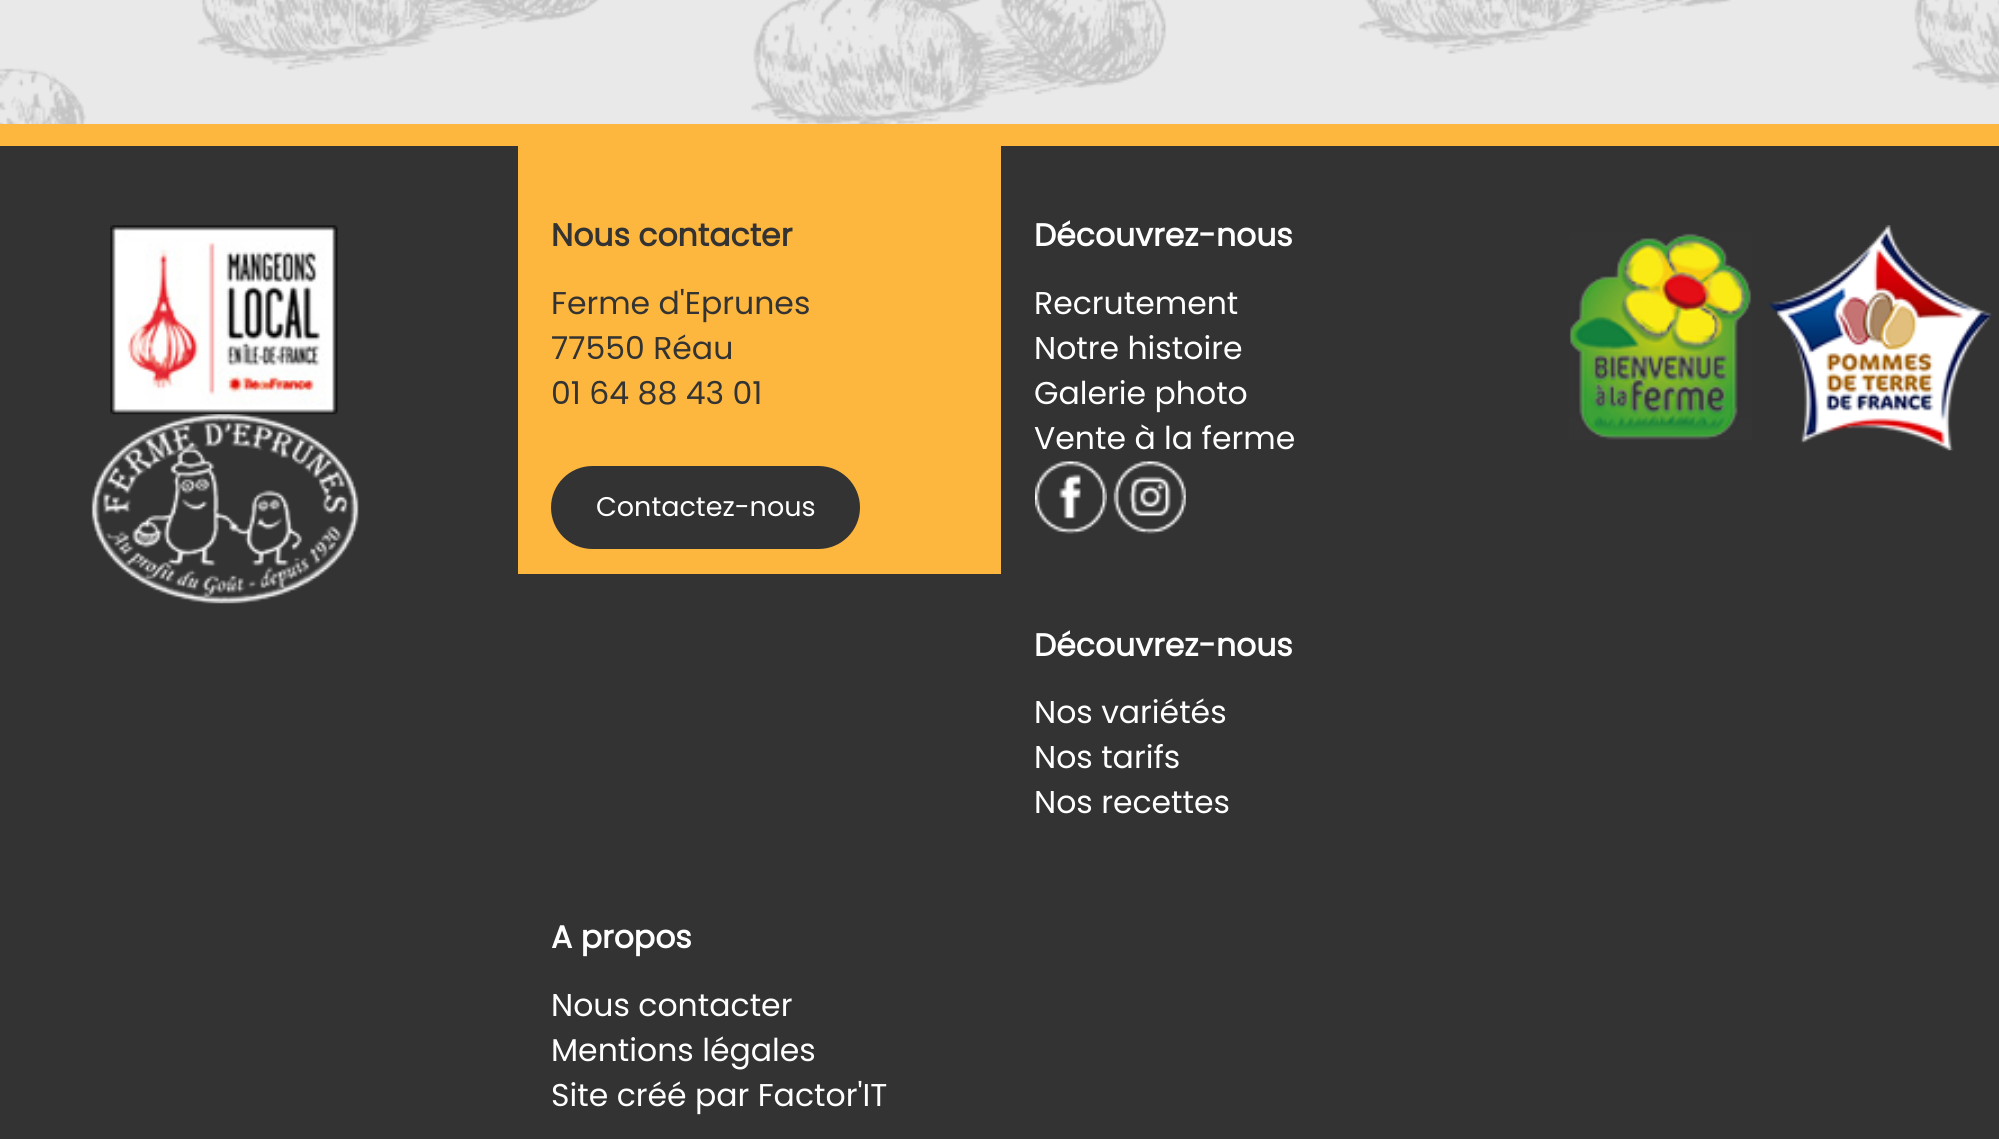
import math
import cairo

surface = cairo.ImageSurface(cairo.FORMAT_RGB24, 1999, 1139)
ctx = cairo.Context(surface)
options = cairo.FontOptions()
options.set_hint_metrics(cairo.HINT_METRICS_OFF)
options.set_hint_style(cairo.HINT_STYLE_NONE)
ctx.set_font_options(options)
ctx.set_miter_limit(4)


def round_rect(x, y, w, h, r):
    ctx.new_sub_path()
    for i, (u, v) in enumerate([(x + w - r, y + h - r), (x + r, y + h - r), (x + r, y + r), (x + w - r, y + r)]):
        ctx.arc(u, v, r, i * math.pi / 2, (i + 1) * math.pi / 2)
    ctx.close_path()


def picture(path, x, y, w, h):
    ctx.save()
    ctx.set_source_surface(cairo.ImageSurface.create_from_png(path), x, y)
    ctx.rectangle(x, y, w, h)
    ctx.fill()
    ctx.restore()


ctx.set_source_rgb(0.914, 0.914, 0.914)
ctx.paint()
picture("img1.png", 0, 0, 1999, 124)
ctx.set_source_rgb(0.2, 0.2, 0.2)
ctx.rectangle(0, 146, 1999, 993)
ctx.fill()
ctx.set_source_rgb(0.992, 0.718, 0.243)
ctx.rectangle(0, 124, 1999, 22)
ctx.fill()
picture("img2.png", 110, 225, 228, 190)
picture("img3.png", 91, 414, 268, 190)
ctx.rectangle(518, 146, 483, 428)
ctx.fill()
ctx.select_font_face("Poppins", cairo.FONT_SLANT_NORMAL, cairo.FONT_WEIGHT_BOLD)
ctx.set_font_size(31.5)
ctx.set_source_rgb(0.2, 0.2, 0.2)
ctx.move_to(551, 246)
ctx.show_text("Nous contacter")
ctx.select_font_face("Poppins")
ctx.move_to(551, 314)
ctx.show_text("Ferme d'Eprunes")
ctx.move_to(551, 359)
ctx.show_text("77550 Réau")
ctx.move_to(551, 404)
ctx.show_text("01 64 88 43 01")
round_rect(551, 466, 309, 83, 41.5)
ctx.fill()
ctx.set_font_size(27)
ctx.set_source_rgb(1, 1, 1)
ctx.move_to(596, 516)
ctx.show_text("Contactez-nous")
ctx.select_font_face("Poppins", cairo.FONT_SLANT_NORMAL, cairo.FONT_WEIGHT_BOLD)
ctx.set_font_size(31.5)
ctx.move_to(1034, 246)
ctx.show_text("Découvrez-nous")
ctx.select_font_face("Poppins")
ctx.move_to(1034, 314)
ctx.show_text("Recrutement")
ctx.move_to(1034, 359)
ctx.show_text("Notre histoire")
ctx.move_to(1034, 404)
ctx.show_text("Galerie photo")
ctx.move_to(1034, 449)
ctx.show_text("Vente à la ferme")
picture("img4.png", 1035, 461, 72, 73)
picture("img5.png", 1113, 461, 73, 73)
ctx.select_font_face("Poppins", cairo.FONT_SLANT_NORMAL, cairo.FONT_WEIGHT_BOLD)
ctx.move_to(1034, 656)
ctx.show_text("Découvrez-nous")
ctx.select_font_face("Poppins")
ctx.move_to(1034, 723)
ctx.show_text("Nos variétés")
ctx.move_to(1034, 768)
ctx.show_text("Nos tarifs")
ctx.move_to(1034, 813)
ctx.show_text("Nos recettes")
ctx.select_font_face("Poppins", cairo.FONT_SLANT_NORMAL, cairo.FONT_WEIGHT_BOLD)
ctx.move_to(551, 948)
ctx.show_text("A propos")
ctx.select_font_face("Poppins")
ctx.move_to(551, 1016)
ctx.show_text("Nous contacter")
ctx.move_to(551, 1061)
ctx.show_text("Mentions légales")
ctx.move_to(551, 1106)
ctx.show_text("Site créé par Factor'IT")
picture("img6.png", 1569, 233, 183, 207)
picture("img7.png", 1768, 225, 224, 226)
surface.write_to_png("page.png")
